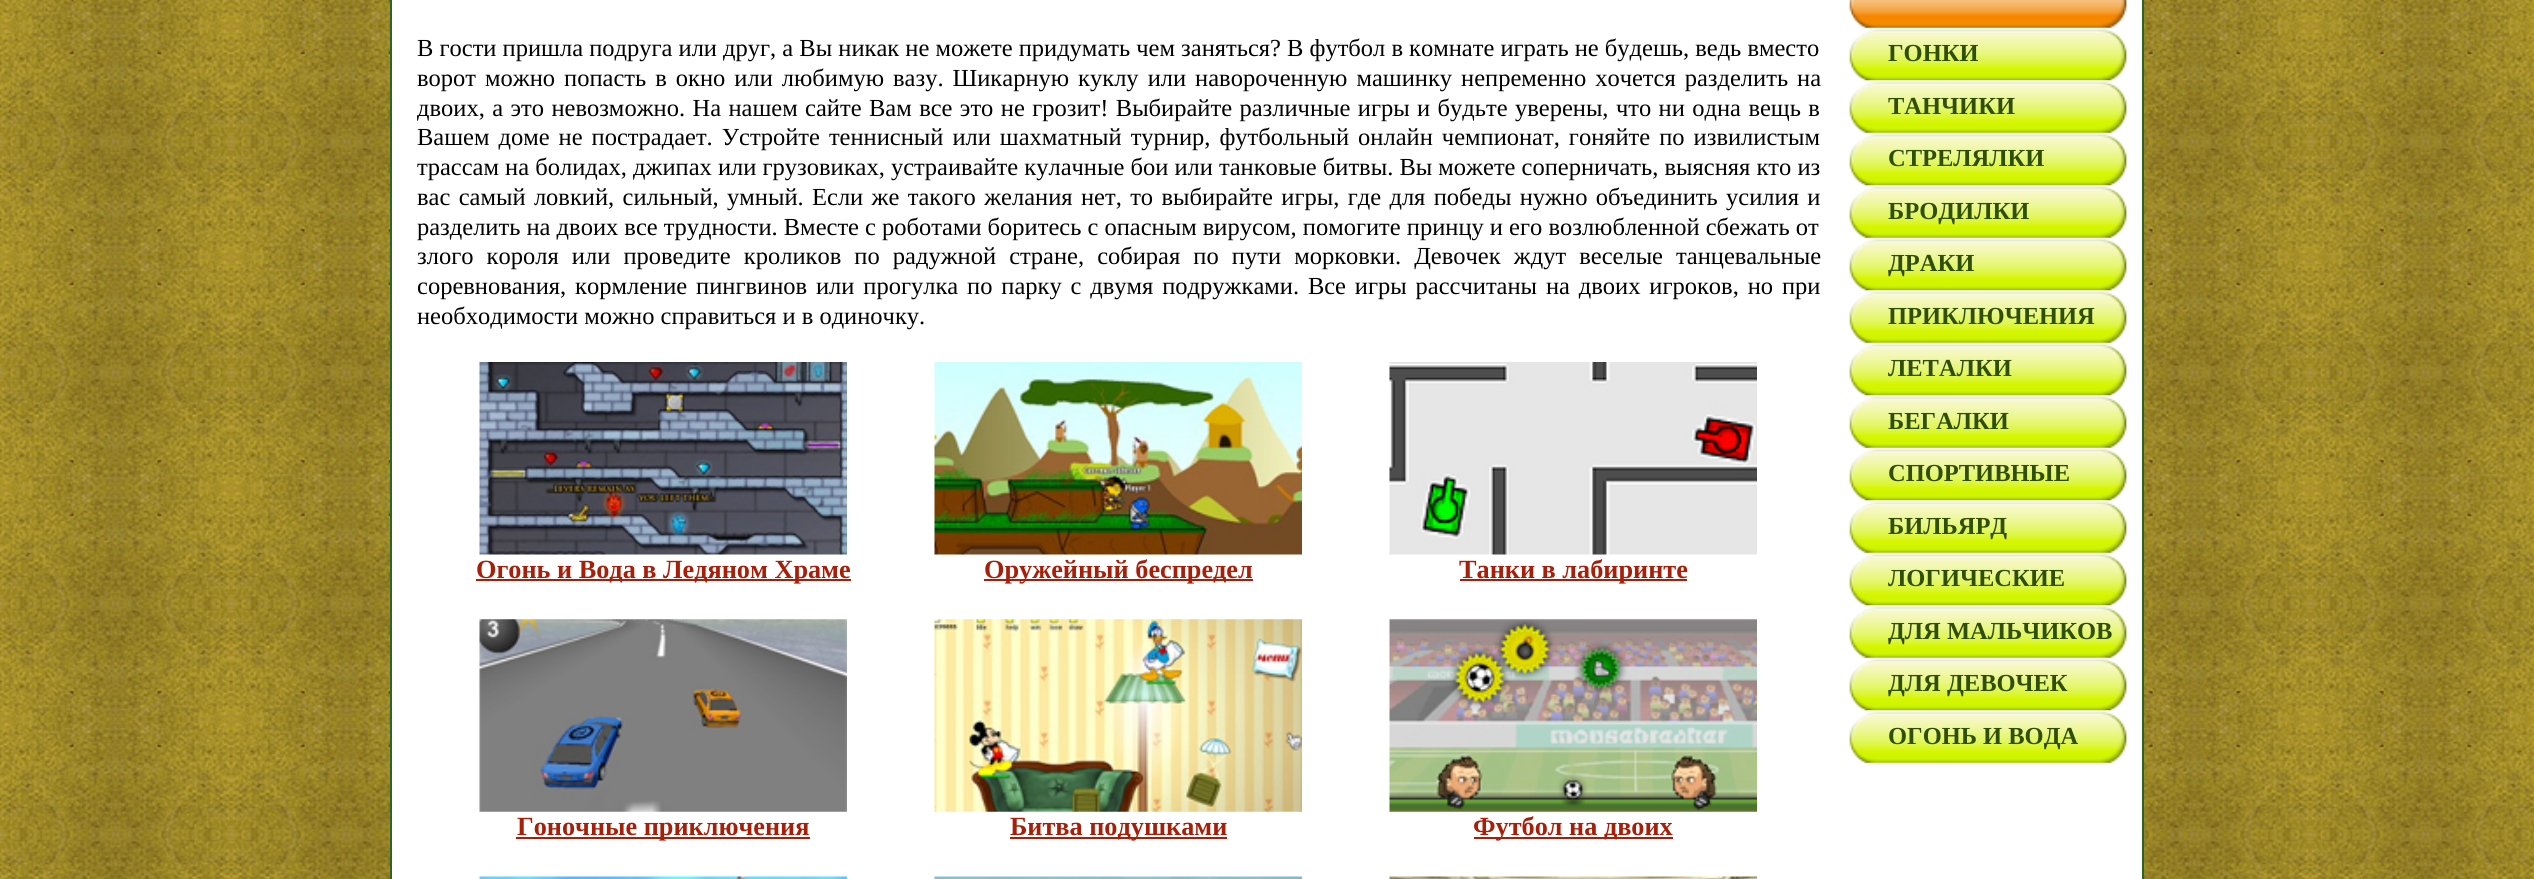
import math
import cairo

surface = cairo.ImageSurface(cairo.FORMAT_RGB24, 2534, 879)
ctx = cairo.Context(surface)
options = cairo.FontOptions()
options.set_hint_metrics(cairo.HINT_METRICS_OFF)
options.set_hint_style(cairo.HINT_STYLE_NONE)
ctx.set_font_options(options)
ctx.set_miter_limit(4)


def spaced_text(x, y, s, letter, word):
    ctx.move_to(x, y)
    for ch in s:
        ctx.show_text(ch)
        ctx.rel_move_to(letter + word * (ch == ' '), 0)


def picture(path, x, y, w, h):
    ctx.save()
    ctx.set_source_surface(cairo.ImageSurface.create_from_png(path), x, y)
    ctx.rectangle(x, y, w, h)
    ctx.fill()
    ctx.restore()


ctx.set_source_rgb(1, 1, 1)
ctx.paint()
picture("img1.png", 0, 0, 2534, 879)
ctx.set_source_rgb(1, 1, 1)
ctx.rectangle(392, 0, 1750, 879)
ctx.fill()
ctx.set_source_rgb(0.165, 0.392, 0.149)
ctx.rectangle(2142, 0, 2, 879)
ctx.fill()
ctx.rectangle(390, 0, 2, 879)
ctx.fill()
ctx.select_font_face("Liberation Serif")
ctx.set_font_size(24.5)
ctx.set_source_rgb(0, 0, 0)
ctx.move_to(417, 56)
ctx.show_text("В гости пришла подруга или друг, а Вы никак не можете придумать чем заняться? В футбол в комнате играть не будешь, ведь вместо")
spaced_text(417, 86, "ворот можно попасть в окно или любимую вазу. Шикарную куклу или навороченную машинку непременно хочется разделить на", 0, 2.9)
spaced_text(417, 116, "двоих, а это невозможно. На нашем сайте Вам все это не грозит! Выбирайте различные игры и будьте уверены, что ни одна вещь в", 0, 1.3)
spaced_text(417, 145, "Вашем доме не пострадает. Устройте теннисный или шахматный турнир, футбольный онлайн чемпионат, гоняйте по извилистым", 0, 2.9)
ctx.move_to(417, 175)
ctx.show_text("трассам на болидах, джипах или грузовиках, устраивайте кулачные бои или танковые битвы. Вы можете соперничать, выясняя кто из")
spaced_text(417, 205, "вас самый ловкий, сильный, умный. Если же такого желания нет, то выбирайте игры, где для победы нужно объединить усилия и", 0, 2.25)
ctx.move_to(417, 235)
ctx.show_text("разделить на двоих все трудности. Вместе с роботами боритесь с опасным вирусом, помогите принцу и его возлюбленной сбежать от")
spaced_text(417, 264, "злого короля или проведите кроликов по радужной стране, собирая по пути морковки. Девочек ждут веселые танцевальные", 0, 7)
spaced_text(417, 294, "соревнования, кормление пингвинов или прогулка по парку с двумя подружками. Все игры рассчитаны на двоих игроков, но при", 0, 2.75)
ctx.move_to(417, 324)
ctx.show_text("необходимости можно справиться и в одиночку.")
picture("img2.png", 479, 362, 368, 193)
ctx.set_source_rgb(0.655, 0.122, 0.039)
ctx.rectangle(476, 579, 375, 2)
ctx.fill()
ctx.select_font_face("Liberation Serif", cairo.FONT_SLANT_NORMAL, cairo.FONT_WEIGHT_BOLD)
ctx.set_font_size(26.25)
ctx.move_to(476, 578)
ctx.show_text("Огонь и Вода в Ледяном Храме")
picture("img3.png", 934, 362, 368, 193)
ctx.rectangle(984, 579, 269, 2)
ctx.fill()
ctx.move_to(984, 578)
ctx.show_text("Оружейный беспредел")
picture("img4.png", 1389, 362, 368, 193)
ctx.rectangle(1460, 579, 227, 2)
ctx.fill()
ctx.move_to(1459, 578)
ctx.show_text("Танки в лабиринте")
picture("img5.png", 479, 619, 368, 193)
ctx.rectangle(516, 837, 294, 2)
ctx.fill()
ctx.move_to(517, 835)
ctx.show_text("Гоночные приключения")
picture("img6.png", 934, 619, 368, 193)
ctx.rectangle(1010, 837, 217, 2)
ctx.fill()
ctx.move_to(1010, 835)
ctx.show_text("Битва подушками")
picture("img7.png", 1389, 619, 368, 193)
ctx.rectangle(1474, 837, 199, 2)
ctx.fill()
ctx.move_to(1473, 835)
ctx.show_text("Футбол на двоих")
picture("img8.png", 479, 876, 368, 3)
picture("img9.png", 934, 876, 368, 3)
picture("img10.png", 1389, 876, 368, 3)
picture("img11.png", 1849, 0, 278, 28)
picture("img12.png", 1849, 29, 278, 52)
ctx.set_font_size(24.5)
ctx.set_source_rgb(0.188, 0.31, 0.024)
ctx.move_to(1888, 61)
ctx.show_text("ГОНКИ")
picture("img13.png", 1849, 81, 278, 52)
ctx.move_to(1888, 114)
ctx.show_text("ТАНЧИКИ")
picture("img12.png", 1849, 134, 278, 52)
ctx.move_to(1888, 166)
ctx.show_text("СТРЕЛЯЛКИ")
picture("img13.png", 1849, 186, 278, 52)
ctx.move_to(1888, 219)
ctx.show_text("БРОДИЛКИ")
picture("img12.png", 1849, 239, 278, 52)
ctx.move_to(1888, 271)
ctx.show_text("ДРАКИ")
picture("img13.png", 1849, 291, 278, 52)
ctx.move_to(1888, 324)
ctx.show_text("ПРИКЛЮЧЕНИЯ")
picture("img12.png", 1849, 344, 278, 52)
ctx.move_to(1888, 376)
ctx.show_text("ЛЕТАЛКИ")
picture("img13.png", 1849, 396, 278, 52)
ctx.move_to(1888, 429)
ctx.show_text("БЕГАЛКИ")
picture("img12.png", 1849, 449, 278, 52)
ctx.move_to(1888, 481)
ctx.show_text("СПОРТИВНЫЕ")
picture("img13.png", 1849, 501, 278, 52)
ctx.move_to(1888, 534)
ctx.show_text("БИЛЬЯРД")
picture("img12.png", 1849, 554, 278, 52)
ctx.move_to(1888, 586)
ctx.show_text("ЛОГИЧЕСКИЕ")
picture("img13.png", 1849, 606, 278, 52)
ctx.move_to(1888, 639)
ctx.show_text("ДЛЯ МАЛЬЧИКОВ")
picture("img12.png", 1849, 659, 278, 52)
ctx.move_to(1888, 691)
ctx.show_text("ДЛЯ ДЕВОЧЕК")
picture("img13.png", 1849, 711, 278, 52)
ctx.move_to(1888, 744)
ctx.show_text("ОГОНЬ И ВОДА")
surface.write_to_png("page.png")
